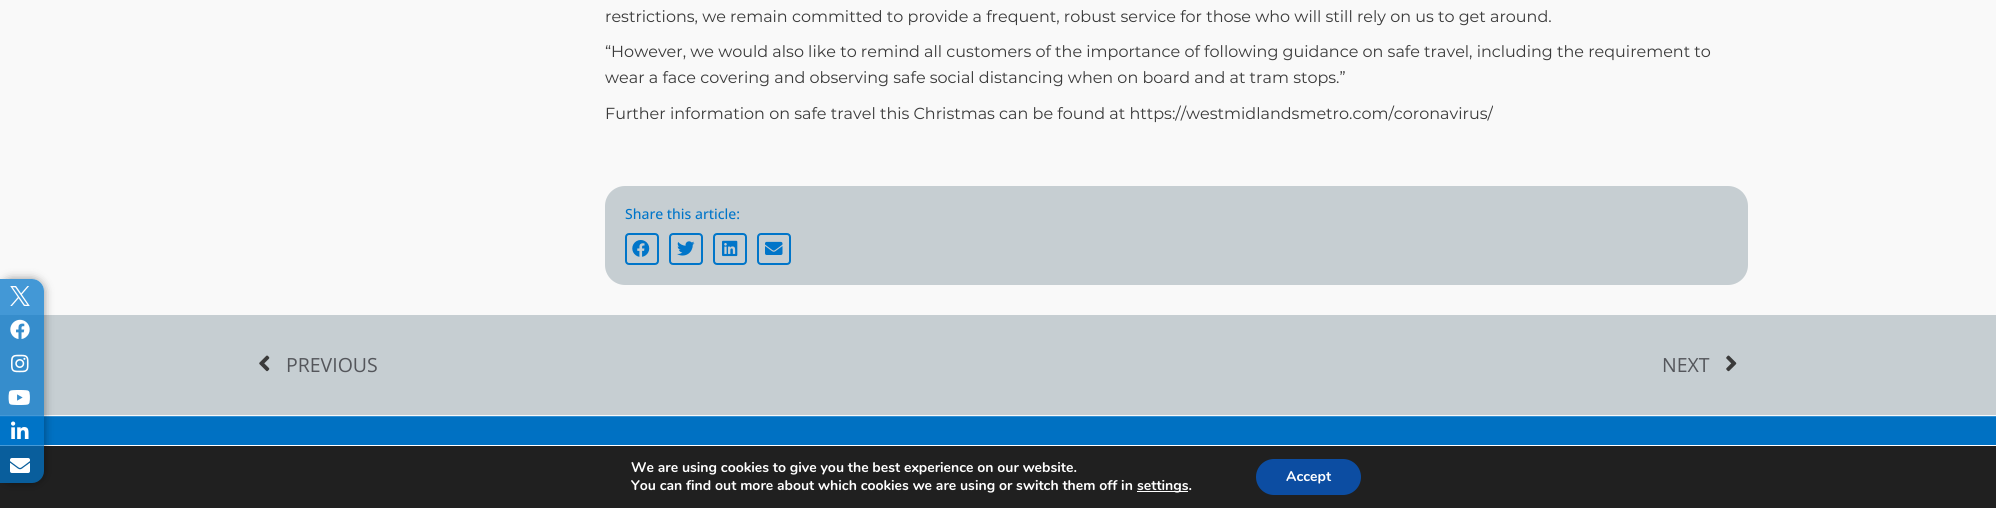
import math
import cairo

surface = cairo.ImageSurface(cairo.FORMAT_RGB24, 1996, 508)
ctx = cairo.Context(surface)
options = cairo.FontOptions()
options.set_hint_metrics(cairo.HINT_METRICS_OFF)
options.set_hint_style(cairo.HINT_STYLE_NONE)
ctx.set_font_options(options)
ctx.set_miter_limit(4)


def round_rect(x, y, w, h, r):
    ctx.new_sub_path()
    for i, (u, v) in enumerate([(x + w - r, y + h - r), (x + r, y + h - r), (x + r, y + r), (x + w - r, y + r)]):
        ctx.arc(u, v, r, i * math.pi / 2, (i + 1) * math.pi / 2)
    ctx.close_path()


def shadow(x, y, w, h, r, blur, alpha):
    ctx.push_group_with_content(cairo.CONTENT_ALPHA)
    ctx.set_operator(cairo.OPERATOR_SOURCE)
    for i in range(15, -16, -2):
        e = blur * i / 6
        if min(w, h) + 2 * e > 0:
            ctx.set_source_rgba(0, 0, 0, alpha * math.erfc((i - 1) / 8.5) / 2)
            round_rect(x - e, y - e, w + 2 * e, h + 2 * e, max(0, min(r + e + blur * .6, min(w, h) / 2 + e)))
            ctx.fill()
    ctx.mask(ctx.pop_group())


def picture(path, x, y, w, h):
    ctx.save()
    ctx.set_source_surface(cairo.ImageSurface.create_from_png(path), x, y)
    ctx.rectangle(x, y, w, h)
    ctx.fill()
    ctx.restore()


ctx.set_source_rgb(0.973, 0.973, 0.973)
ctx.paint()
ctx.select_font_face("Montserrat")
ctx.set_font_size(16)
ctx.set_source_rgb(0.227, 0.227, 0.227)
ctx.move_to(605, 22)
ctx.show_text("restrictions, we remain committed to provide a frequent, robust service for those who will still rely on us to get around.")
ctx.move_to(605, 57)
ctx.show_text("“However, we would also like to remind all customers of the importance of following guidance on safe travel, including the requirement to")
ctx.move_to(605, 83)
ctx.show_text("wear a face covering and observing safe social distancing when on board and at tram stops.”")
ctx.move_to(605, 119)
ctx.show_text("Further information on safe travel this Christmas can be found at https://westmidlandsmetro.com/coronavirus/")
ctx.set_source_rgb(0.776, 0.808, 0.824)
round_rect(605, 186, 1143, 99, 20)
ctx.fill()
ctx.select_font_face("Open Sans Medium")
ctx.set_font_size(14)
ctx.set_source_rgb(0, 0.459, 0.788)
ctx.move_to(625, 219)
ctx.show_text("Share this article:")
round_rect(626, 234, 32, 30, 3)
ctx.stroke()
picture("img1.png", 632, 240, 18, 17)
round_rect(670, 234, 32, 30, 3)
ctx.stroke()
picture("img2.png", 677, 241, 18, 15)
round_rect(714, 234, 32, 30, 3)
ctx.stroke()
picture("img3.png", 722, 240, 16, 17)
round_rect(758, 234, 32, 30, 3)
ctx.stroke()
picture("img4.png", 765, 241, 18, 14)
ctx.set_source_rgb(0.776, 0.808, 0.824)
ctx.rectangle(0, 315, 1996, 100)
ctx.fill()
picture("img5.png", 259, 355, 11, 17)
ctx.select_font_face("Open Sans")
ctx.set_font_size(19.5)
ctx.set_source_rgb(0.329, 0.337, 0.357)
ctx.move_to(286, 372)
ctx.show_text("PREVIOUS")
ctx.move_to(1662, 372)
ctx.show_text("NEXT")
picture("img6.png", 1726, 355, 11, 17)
gradient = cairo.LinearGradient(998, 417, 998, 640)
gradient.add_color_stop_rgba(0, 0, 0.443, 0.761, 1)
gradient.add_color_stop_rgba(1, 0, 0.459, 0.788, 1)
ctx.set_source(gradient)
ctx.rectangle(0, 417, 1996, 28)
ctx.fill()
ctx.set_source_rgb(0.2, 0.569, 0.831)
ctx.rectangle(0, 416, 1996, 1)
ctx.fill()
ctx.set_source_rgb(0.125, 0.125, 0.125)
ctx.rectangle(0, 446, 1996, 62)
ctx.fill()
ctx.set_source_rgb(1, 1, 1)
ctx.rectangle(0, 445, 1996, 1)
ctx.fill()
ctx.save()
ctx.set_fill_rule(cairo.FILL_RULE_EVEN_ODD)
ctx.new_path()
ctx.move_to(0, 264)
ctx.line_to(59, 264)
ctx.line_to(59, 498)
ctx.line_to(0, 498)
ctx.close_path()
ctx.move_to(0, 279)
ctx.line_to(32, 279)
ctx.curve_to(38.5, 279, 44, 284.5, 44, 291)
ctx.line_to(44, 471)
ctx.curve_to(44, 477.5, 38.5, 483, 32, 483)
ctx.line_to(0, 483)
ctx.close_path()
ctx.clip()
ctx.set_source_rgb(0, 0, 0)
shadow(1, 280, 42, 202, 11, 5, 0.5)
ctx.restore()
ctx.set_source_rgba(0, 0.459, 0.788, 0.73)
ctx.new_path()
ctx.move_to(0, 279)
ctx.line_to(32, 279)
ctx.curve_to(38.5, 279, 44, 284.5, 44, 291)
ctx.line_to(44, 471)
ctx.curve_to(44, 477.5, 38.5, 483, 32, 483)
ctx.line_to(0, 483)
ctx.close_path()
ctx.fill()
picture("img7.png", 10, 286, 20, 20)
picture("img8.png", 10, 319, 20, 20)
picture("img9.png", 11, 354, 18, 19)
picture("img10.png", 8, 390, 22, 15)
picture("img11.png", 11, 421, 18, 18)
picture("img12.png", 10, 458, 20, 15)
ctx.select_font_face("Nunito", cairo.FONT_SLANT_NORMAL, cairo.FONT_WEIGHT_BOLD)
ctx.set_font_size(14)
ctx.set_source_rgb(1, 1, 1)
ctx.move_to(631, 472)
ctx.show_text("We are using cookies to give you the best experience on our website.")
ctx.move_to(631, 490)
ctx.show_text("You can find out more about which cookies we are using or switch them off in")
ctx.rectangle(1137, 491, 51, 1)
ctx.fill()
ctx.move_to(1137, 490)
ctx.show_text("settings.")
ctx.set_source_rgb(0.047, 0.302, 0.635)
round_rect(1256, 459, 105, 36, 18)
ctx.fill()
ctx.set_source_rgb(1, 1, 1)
ctx.move_to(1286, 481)
ctx.show_text("Accept")
surface.write_to_png("page.png")
